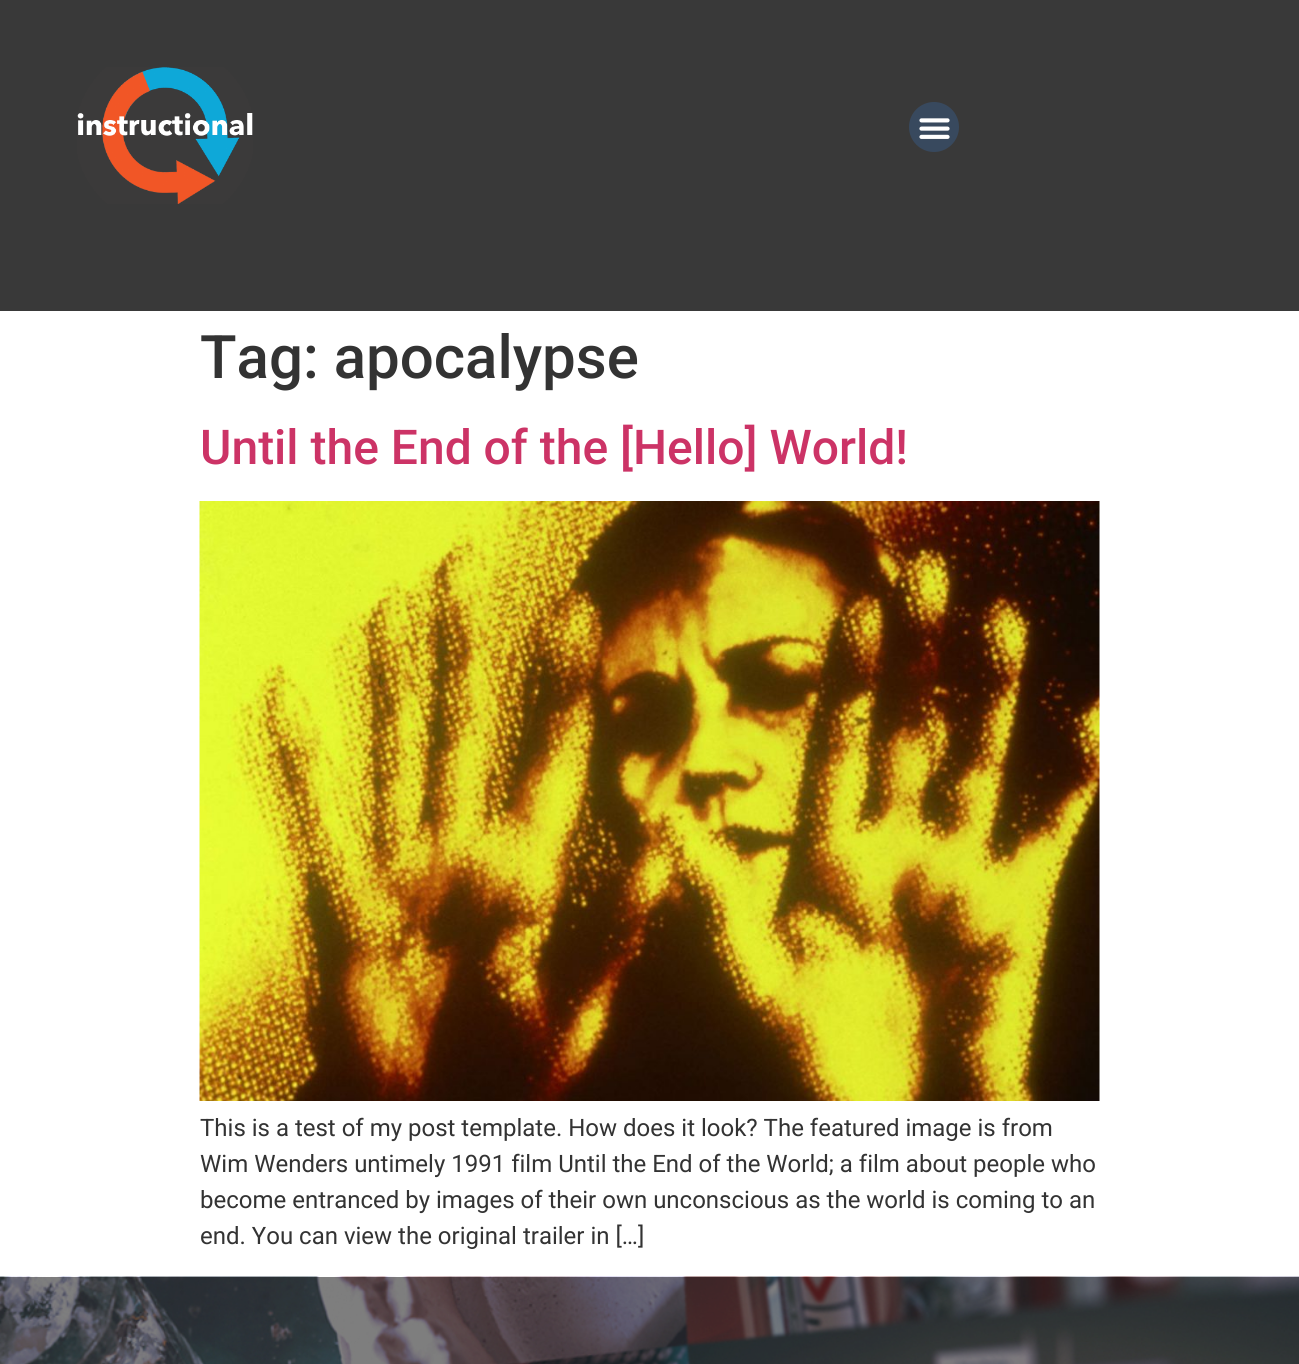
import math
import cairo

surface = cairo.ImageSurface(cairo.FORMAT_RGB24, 1299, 1364)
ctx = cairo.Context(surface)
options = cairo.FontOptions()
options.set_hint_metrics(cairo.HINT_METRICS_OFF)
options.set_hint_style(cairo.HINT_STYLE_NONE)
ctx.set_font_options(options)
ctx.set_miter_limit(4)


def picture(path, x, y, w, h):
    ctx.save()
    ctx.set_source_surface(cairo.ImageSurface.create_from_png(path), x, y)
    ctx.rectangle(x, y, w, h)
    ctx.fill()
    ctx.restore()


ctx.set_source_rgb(1, 1, 1)
ctx.paint()
ctx.set_source_rgb(0.224, 0.224, 0.224)
ctx.rectangle(0, 0, 1299, 311)
ctx.fill()
picture("img1.png", 77, 67, 176, 137)
ctx.set_source_rgb(0.22, 0.286, 0.369)
ctx.arc(934, 127, 25, 0, 2 * math.pi)
ctx.fill()
picture("img2.png", 919, 118, 31, 21)
ctx.select_font_face("Roboto Medium")
ctx.set_font_size(60)
ctx.set_source_rgb(0.2, 0.2, 0.2)
ctx.move_to(200, 378)
ctx.show_text("Tag: apocalypse")
ctx.set_font_size(48)
ctx.set_source_rgb(0.8, 0.2, 0.4)
ctx.move_to(200, 464)
ctx.show_text("Until the End of the [Hello] World!")
picture("img3.png", 199, 501, 901, 600)
ctx.select_font_face("Roboto")
ctx.set_font_size(24)
ctx.set_source_rgb(0.2, 0.2, 0.2)
ctx.move_to(200, 1136)
ctx.show_text("This is a test of my post template. How does it look? The featured image is from")
ctx.move_to(200, 1172)
ctx.show_text("Wim Wenders untimely 1991 film Until the End of the World; a film about people who")
ctx.move_to(200, 1208)
ctx.show_text("become entranced by images of their own unconscious as the world is coming to an")
ctx.move_to(200, 1244)
ctx.show_text("end. You can view the original trailer in […]")
picture("img4.png", 0, 1276, 1299, 88)
surface.write_to_png("page.png")
